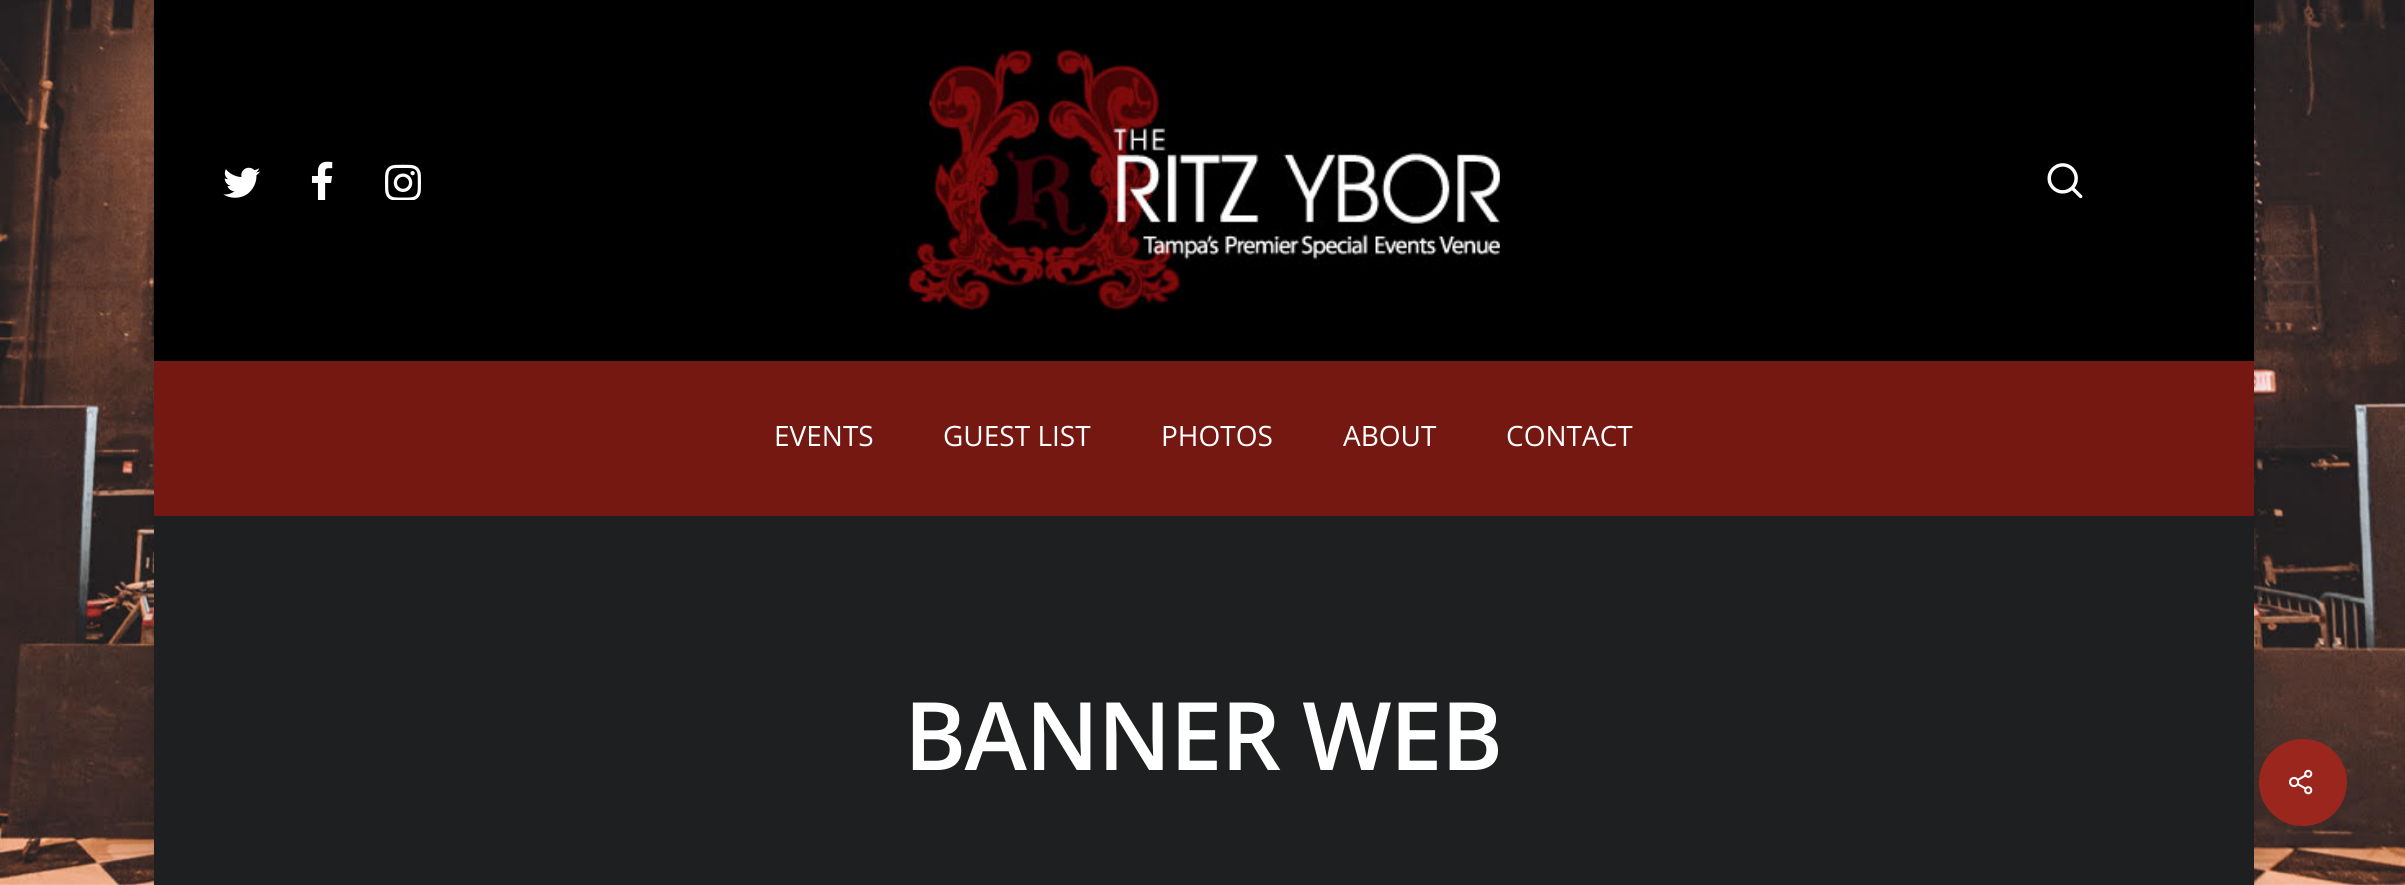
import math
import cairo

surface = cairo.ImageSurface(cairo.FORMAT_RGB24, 2405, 885)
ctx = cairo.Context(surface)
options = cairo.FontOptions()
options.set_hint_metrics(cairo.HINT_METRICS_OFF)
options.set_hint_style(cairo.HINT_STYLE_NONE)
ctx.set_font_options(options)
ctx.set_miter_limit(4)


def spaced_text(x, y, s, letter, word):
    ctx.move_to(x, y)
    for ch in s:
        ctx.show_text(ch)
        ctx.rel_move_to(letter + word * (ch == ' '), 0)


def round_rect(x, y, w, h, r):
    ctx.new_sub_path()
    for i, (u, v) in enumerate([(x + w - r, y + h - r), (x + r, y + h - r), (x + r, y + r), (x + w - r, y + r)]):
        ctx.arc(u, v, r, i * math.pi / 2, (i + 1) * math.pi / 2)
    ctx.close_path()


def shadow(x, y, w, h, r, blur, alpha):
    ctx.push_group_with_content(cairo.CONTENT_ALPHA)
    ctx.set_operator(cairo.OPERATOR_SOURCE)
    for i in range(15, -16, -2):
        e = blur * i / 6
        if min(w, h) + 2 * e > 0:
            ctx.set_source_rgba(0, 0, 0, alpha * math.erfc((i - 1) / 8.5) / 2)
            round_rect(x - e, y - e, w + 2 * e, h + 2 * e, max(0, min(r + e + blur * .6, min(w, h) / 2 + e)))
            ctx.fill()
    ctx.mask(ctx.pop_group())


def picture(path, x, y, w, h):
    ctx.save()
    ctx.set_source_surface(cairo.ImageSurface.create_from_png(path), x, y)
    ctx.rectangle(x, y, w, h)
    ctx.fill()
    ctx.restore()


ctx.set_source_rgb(1, 1, 1)
ctx.paint()
picture("img1.png", 0, 0, 2405, 885)
ctx.set_source_rgb(0, 0, 0)
shadow(154, 0, 2100, 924, 0, 13, 0.15)
ctx.set_source_rgb(0, 0, 0)
ctx.rectangle(154, 0, 2100, 361)
ctx.fill()
picture("img2.png", 223, 167, 37, 31)
picture("img3.png", 311, 161, 22, 39)
picture("img4.png", 385, 164, 36, 36)
picture("img5.png", 906, 49, 594, 263)
picture("img6.png", 2047, 163, 36, 36)
ctx.set_source_rgb(0.459, 0.094, 0.067)
ctx.rectangle(154, 361, 2100, 155)
ctx.fill()
ctx.select_font_face("Open Sans")
ctx.set_font_size(28)
ctx.set_source_rgb(1, 1, 1)
ctx.move_to(774, 446)
ctx.show_text("EVENTS")
ctx.move_to(943, 446)
ctx.show_text("GUEST LIST")
ctx.move_to(1161, 446)
ctx.show_text("PHOTOS")
ctx.move_to(1343, 446)
ctx.show_text("ABOUT")
ctx.move_to(1506, 446)
ctx.show_text("CONTACT")
ctx.set_source_rgb(0.118, 0.122, 0.125)
ctx.rectangle(154, 516, 2100, 369)
ctx.fill()
ctx.select_font_face("Open Sans SemiBold")
ctx.set_font_size(94.5)
ctx.set_source_rgb(1, 1, 1)
spaced_text(904, 770, "BANNER WEB", -1.75, 0)
ctx.set_source_rgb(0.604, 0.149, 0.118)
round_rect(2259, 739, 88, 87, 43.5)
ctx.fill()
picture("img7.png", 2289, 769, 24, 26)
surface.write_to_png("page.png")
